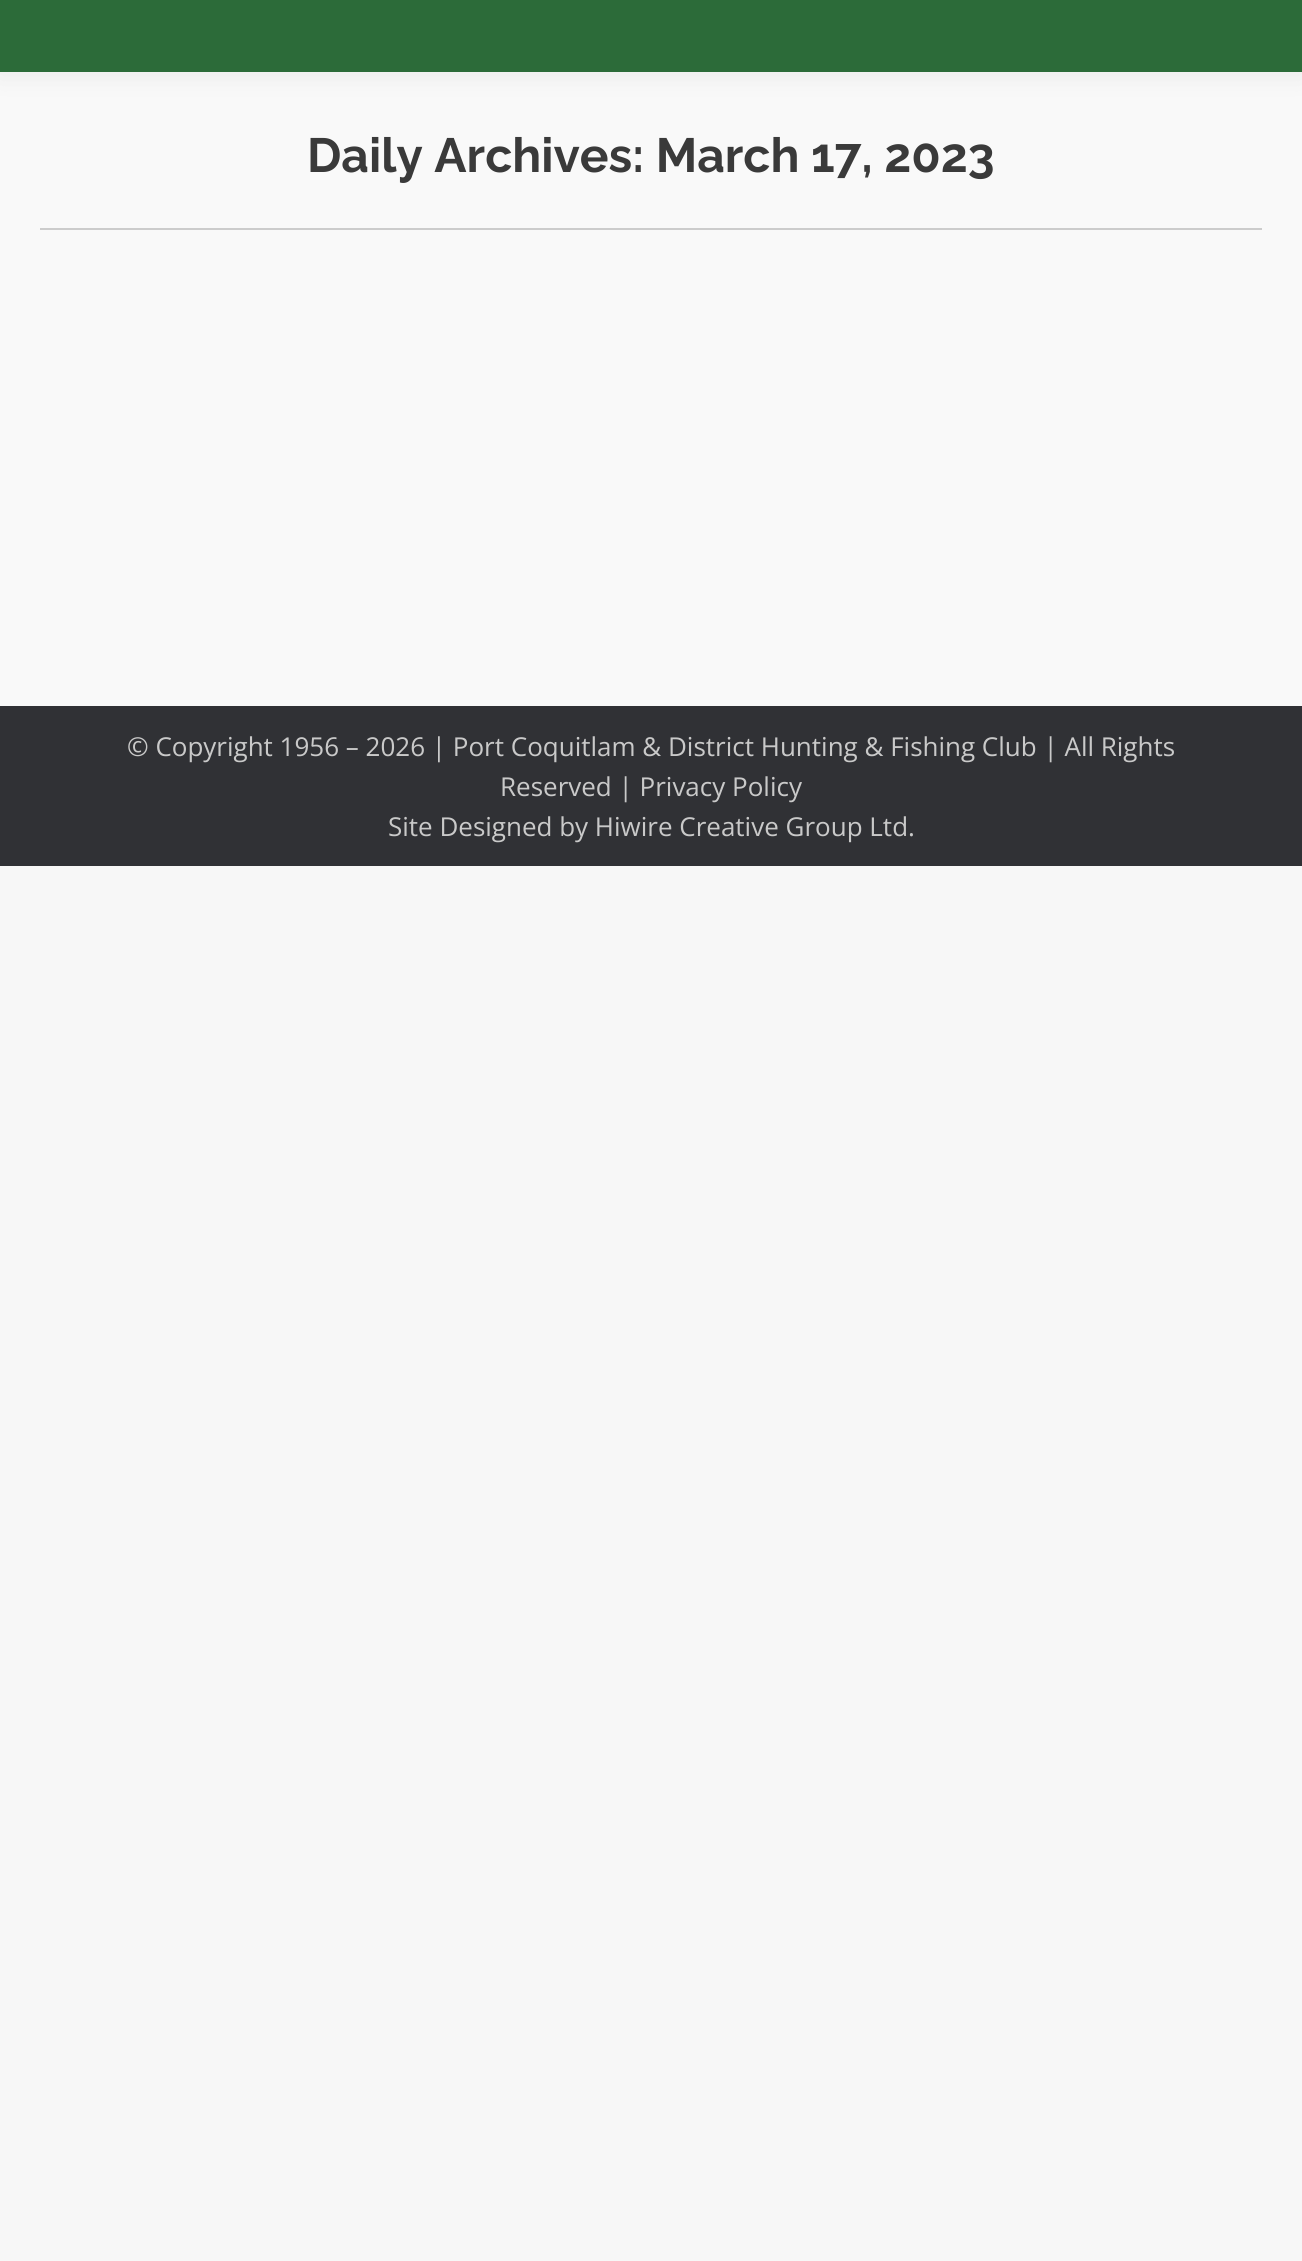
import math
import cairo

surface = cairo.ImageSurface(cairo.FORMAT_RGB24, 1302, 2261)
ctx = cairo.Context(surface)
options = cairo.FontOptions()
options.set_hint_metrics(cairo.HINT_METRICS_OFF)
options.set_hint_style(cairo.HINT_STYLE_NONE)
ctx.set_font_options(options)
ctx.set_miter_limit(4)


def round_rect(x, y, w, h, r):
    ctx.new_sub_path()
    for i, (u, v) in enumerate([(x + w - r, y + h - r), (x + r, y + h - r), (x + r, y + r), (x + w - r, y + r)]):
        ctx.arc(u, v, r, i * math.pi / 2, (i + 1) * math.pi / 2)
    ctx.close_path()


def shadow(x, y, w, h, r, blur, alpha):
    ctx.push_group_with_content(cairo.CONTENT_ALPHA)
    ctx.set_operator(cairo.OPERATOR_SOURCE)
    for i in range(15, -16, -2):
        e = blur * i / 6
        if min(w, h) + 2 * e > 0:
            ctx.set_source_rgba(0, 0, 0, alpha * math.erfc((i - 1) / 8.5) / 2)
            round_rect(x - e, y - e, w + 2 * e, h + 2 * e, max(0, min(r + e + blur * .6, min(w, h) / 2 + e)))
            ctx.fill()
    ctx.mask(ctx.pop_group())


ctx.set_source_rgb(0.965, 0.965, 0.965)
ctx.paint()
ctx.set_source_rgb(0.976, 0.976, 0.976)
ctx.rectangle(0, 72, 1302, 634)
ctx.fill()
ctx.set_source_rgb(0, 0, 0)
shadow(-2, -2, 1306, 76, 0, 15, 0.07)
ctx.set_source_rgb(0.173, 0.42, 0.224)
ctx.rectangle(0, 0, 1302, 72)
ctx.fill()
ctx.select_font_face("Raleway", cairo.FONT_SLANT_NORMAL, cairo.FONT_WEIGHT_BOLD)
ctx.set_font_size(48)
ctx.set_source_rgb(0.227, 0.227, 0.227)
ctx.move_to(307, 172)
ctx.show_text("Daily Archives: March 17, 2023")
ctx.set_source_rgb(0.8, 0.8, 0.8)
ctx.rectangle(40, 228, 1222, 2)
ctx.fill()
ctx.set_source_rgb(0.188, 0.192, 0.208)
ctx.rectangle(0, 706, 1302, 160)
ctx.fill()
ctx.select_font_face("Open Sans")
ctx.set_font_size(26)
ctx.set_source_rgb(0.788, 0.788, 0.788)
ctx.move_to(127, 756)
ctx.show_text("© Copyright 1956 – 2026 | Port Coquitlam & District Hunting & Fishing Club | All Rights")
ctx.move_to(500, 796)
ctx.show_text("Reserved | Privacy Policy")
ctx.move_to(388, 836)
ctx.show_text("Site Designed by Hiwire Creative Group Ltd.")
surface.write_to_png("page.png")
